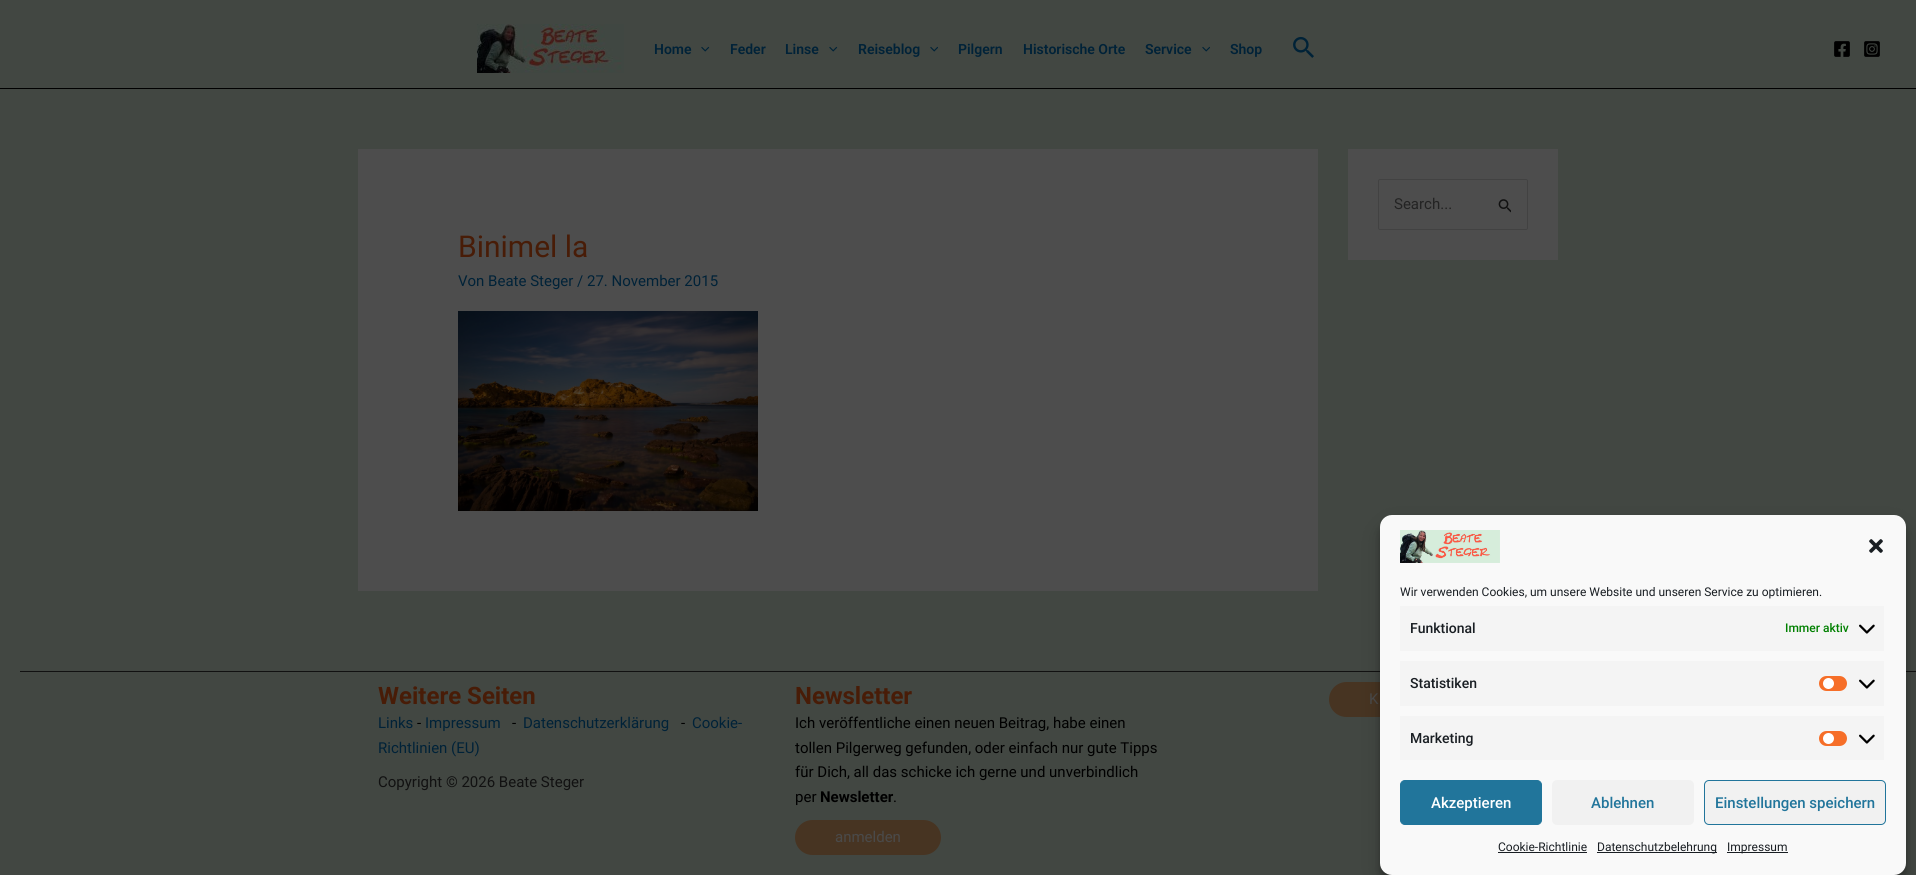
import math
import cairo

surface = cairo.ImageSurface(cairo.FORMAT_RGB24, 1916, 875)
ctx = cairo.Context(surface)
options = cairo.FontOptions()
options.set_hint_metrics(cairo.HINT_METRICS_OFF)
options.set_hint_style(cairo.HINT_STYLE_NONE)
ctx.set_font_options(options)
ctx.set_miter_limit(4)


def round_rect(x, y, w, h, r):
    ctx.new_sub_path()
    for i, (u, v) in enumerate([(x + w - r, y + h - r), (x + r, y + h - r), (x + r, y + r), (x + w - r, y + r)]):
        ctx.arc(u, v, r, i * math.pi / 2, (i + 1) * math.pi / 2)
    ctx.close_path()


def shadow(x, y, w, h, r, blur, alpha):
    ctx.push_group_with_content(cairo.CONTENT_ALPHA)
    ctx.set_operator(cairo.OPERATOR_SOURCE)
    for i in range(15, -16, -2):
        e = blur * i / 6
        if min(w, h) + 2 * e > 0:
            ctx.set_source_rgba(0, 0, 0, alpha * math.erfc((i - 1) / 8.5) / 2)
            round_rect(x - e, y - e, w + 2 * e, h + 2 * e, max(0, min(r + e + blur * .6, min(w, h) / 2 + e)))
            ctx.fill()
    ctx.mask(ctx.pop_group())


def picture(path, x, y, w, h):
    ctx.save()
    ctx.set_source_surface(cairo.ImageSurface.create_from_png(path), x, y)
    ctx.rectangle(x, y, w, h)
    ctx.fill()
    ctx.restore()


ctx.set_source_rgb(0.259, 0.278, 0.259)
ctx.paint()
ctx.set_source_rgb(0, 0, 0)
ctx.rectangle(0, 88, 1916, 1)
ctx.fill()
picture("img1.png", 477, 24, 147, 49)
ctx.select_font_face("Roboto SemiBold")
ctx.set_font_size(14)
ctx.set_source_rgb(0, 0.133, 0.22)
ctx.move_to(654, 54)
ctx.show_text("Home")
picture("img2.png", 701, 46, 9, 6)
ctx.move_to(730, 54)
ctx.show_text("Feder")
ctx.move_to(785, 54)
ctx.show_text("Linse")
picture("img2.png", 829, 46, 9, 6)
ctx.move_to(858, 54)
ctx.show_text("Reiseblog")
picture("img3.png", 930, 46, 8, 6)
ctx.move_to(958, 54)
ctx.show_text("Pilgern")
ctx.move_to(1023, 54)
ctx.show_text("Historische Orte")
ctx.move_to(1145, 54)
ctx.show_text("Service")
picture("img3.png", 1202, 46, 8, 6)
ctx.move_to(1230, 54)
ctx.show_text("Shop")
picture("img4.png", 1293, 36, 21, 22)
picture("img5.png", 1834, 41, 16, 16)
picture("img6.png", 1864, 41, 16, 16)
ctx.set_source_rgb(0.302, 0.302, 0.302)
ctx.rectangle(1348, 149, 210, 111)
ctx.fill()
round_rect(1378.5, 179.5, 149, 50, 1.5)
ctx.set_source_rgb(0.259, 0.259, 0.259)
ctx.set_line_width(1)
ctx.stroke()
ctx.select_font_face("Roboto")
ctx.set_font_size(15)
ctx.set_source_rgb(0.137, 0.137, 0.137)
ctx.move_to(1394, 209)
ctx.show_text("Search...")
picture("img7.png", 1498, 199, 13, 14)
ctx.set_source_rgb(0.302, 0.302, 0.302)
ctx.rectangle(358, 149, 960, 442)
ctx.fill()
ctx.set_font_size(30)
ctx.set_source_rgb(0.282, 0.11, 0.031)
ctx.move_to(458, 257)
ctx.show_text("Binimel la")
ctx.set_font_size(15)
ctx.set_source_rgb(0, 0.133, 0.22)
ctx.move_to(458, 286)
ctx.show_text("Von Beate Steger / 27. November 2015")
picture("img8.png", 458, 311, 300, 200)
ctx.set_source_rgb(0.067, 0.067, 0.067)
ctx.rectangle(20, 671, 1896, 1)
ctx.fill()
ctx.select_font_face("Roboto", cairo.FONT_SLANT_NORMAL, cairo.FONT_WEIGHT_BOLD)
ctx.set_font_size(24)
ctx.set_source_rgb(0.282, 0.11, 0.031)
ctx.move_to(378, 704)
ctx.show_text("Weitere Seiten")
ctx.select_font_face("Roboto")
ctx.set_font_size(15)
ctx.set_source_rgb(0, 0.133, 0.22)
ctx.move_to(378, 728)
ctx.show_text("Links")
ctx.set_source_rgb(0, 0, 0)
ctx.move_to(417, 728)
ctx.show_text("-")
ctx.set_source_rgb(0, 0.133, 0.22)
ctx.move_to(425, 728)
ctx.show_text("Impressum")
ctx.set_source_rgb(0, 0, 0)
ctx.move_to(512, 728)
ctx.show_text("-")
ctx.set_source_rgb(0, 0.133, 0.22)
ctx.move_to(523, 728)
ctx.show_text("Datenschutzerklärung")
ctx.set_source_rgb(0, 0, 0)
ctx.move_to(681, 728)
ctx.show_text("-")
ctx.set_source_rgb(0, 0.133, 0.22)
ctx.move_to(692, 728)
ctx.show_text("Cookie-")
ctx.move_to(378, 753)
ctx.show_text("Richtlinien (EU)")
ctx.set_source_rgb(0.067, 0.067, 0.067)
ctx.move_to(378, 787)
ctx.show_text("Copyright © 2026 Beate Steger")
ctx.select_font_face("Roboto", cairo.FONT_SLANT_NORMAL, cairo.FONT_WEIGHT_BOLD)
ctx.set_font_size(24)
ctx.set_source_rgb(0.282, 0.11, 0.031)
ctx.move_to(795, 704)
ctx.show_text("Newsletter")
ctx.select_font_face("Roboto")
ctx.set_font_size(15)
ctx.set_source_rgb(0, 0, 0)
ctx.move_to(795, 728)
ctx.show_text("Ich veröffentliche einen neuen Beitrag, habe einen")
ctx.move_to(795, 753)
ctx.show_text("tollen Pilgerweg gefunden, oder einfach nur gute Tipps")
ctx.move_to(795, 777)
ctx.show_text("für Dich, all das schicke ich gerne und unverbindlich")
ctx.move_to(795, 802)
ctx.show_text("per")
ctx.select_font_face("Roboto", cairo.FONT_SLANT_NORMAL, cairo.FONT_WEIGHT_BOLD)
ctx.move_to(820, 802)
ctx.show_text("Newsletter")
ctx.select_font_face("Roboto")
ctx.move_to(893, 802)
ctx.show_text(".")
ctx.set_source_rgb(0.278, 0.204, 0.133)
round_rect(795, 820, 146, 35, 17.5)
ctx.fill()
ctx.set_source_rgb(0.29, 0.29, 0.29)
ctx.move_to(835, 842)
ctx.show_text("anmelden")
ctx.set_source_rgb(0.278, 0.204, 0.133)
round_rect(1329, 682, 132, 35, 17.5)
ctx.fill()
ctx.set_source_rgb(0.29, 0.29, 0.29)
ctx.move_to(1369, 704)
ctx.show_text("K")
ctx.set_source_rgb(0, 0, 0)
shadow(1380, 521, 526, 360, 12, 3, 0.23)
shadow(1380, 525, 526, 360, 12, 10, 0.19)
ctx.set_source_rgb(0.976, 0.976, 0.976)
round_rect(1380, 515, 526, 360, 12)
ctx.fill()
picture("img9.png", 1400, 530, 100, 33)
picture("img10.png", 1869, 539, 14, 14)
ctx.set_font_size(12)
ctx.set_source_rgb(0.098, 0.118, 0.137)
ctx.move_to(1400, 596)
ctx.show_text("Wir verwenden Cookies, um unsere Website und unseren Service zu optimieren.")
ctx.set_source_rgb(0.957, 0.957, 0.957)
ctx.rectangle(1400, 606, 484, 45)
ctx.fill()
ctx.select_font_face("Roboto Medium")
ctx.set_font_size(14)
ctx.set_source_rgb(0.098, 0.118, 0.137)
ctx.move_to(1410, 633)
ctx.show_text("Funktional")
ctx.set_font_size(12)
ctx.set_source_rgb(0, 0.502, 0)
ctx.move_to(1785, 632)
ctx.show_text("Immer aktiv")
picture("img11.png", 1859, 624, 16, 10)
ctx.set_source_rgb(0.957, 0.957, 0.957)
ctx.rectangle(1400, 661, 484, 45)
ctx.fill()
ctx.set_font_size(14)
ctx.set_source_rgb(0.098, 0.118, 0.137)
ctx.move_to(1410, 688)
ctx.show_text("Statistiken")
ctx.set_source_rgb(0.961, 0.431, 0.157)
round_rect(1819, 676, 28, 15, 7.5)
ctx.fill()
ctx.set_source_rgb(1, 1, 1)
ctx.arc(1828.5, 683.5, 5.5, 0, 2 * math.pi)
ctx.fill()
picture("img11.png", 1859, 679, 16, 10)
ctx.set_source_rgb(0.957, 0.957, 0.957)
ctx.rectangle(1400, 716, 484, 44)
ctx.fill()
ctx.set_source_rgb(0.098, 0.118, 0.137)
ctx.move_to(1410, 743)
ctx.show_text("Marketing")
ctx.set_source_rgb(0.961, 0.431, 0.157)
round_rect(1819, 731, 28, 15, 7.5)
ctx.fill()
ctx.set_source_rgb(1, 1, 1)
ctx.arc(1828.5, 738.5, 5.5, 0, 2 * math.pi)
ctx.fill()
picture("img11.png", 1859, 734, 16, 10)
ctx.set_source_rgb(0.129, 0.459, 0.608)
round_rect(1400.5, 780.5, 141, 44, 4.5)
ctx.fill_preserve()
ctx.stroke()
ctx.set_font_size(15)
ctx.set_source_rgb(1, 1, 1)
ctx.move_to(1431, 808)
ctx.show_text("Akzeptieren")
ctx.set_source_rgb(0.945, 0.945, 0.945)
round_rect(1552, 780, 142, 45, 5)
ctx.fill()
ctx.set_source_rgb(0.129, 0.459, 0.608)
ctx.move_to(1591, 808)
ctx.show_text("Ablehnen")
ctx.set_source_rgb(0.945, 0.945, 0.945)
round_rect(1704.5, 780.5, 181, 44, 4.5)
ctx.fill_preserve()
ctx.set_source_rgb(0.129, 0.459, 0.608)
ctx.stroke()
ctx.move_to(1715, 808)
ctx.show_text("Einstellungen speichern")
ctx.select_font_face("Roboto")
ctx.set_font_size(12)
ctx.set_source_rgb(0.098, 0.118, 0.137)
ctx.move_to(1498, 851)
ctx.show_text("Cookie-Richtlinie")
ctx.rectangle(1498, 852, 89, 1)
ctx.fill()
ctx.rectangle(1597, 852, 120, 1)
ctx.fill()
ctx.move_to(1597, 851)
ctx.show_text("Datenschutzbelehrung")
ctx.rectangle(1727, 852, 61, 1)
ctx.fill()
ctx.move_to(1727, 851)
ctx.show_text("Impressum")
surface.write_to_png("page.png")
